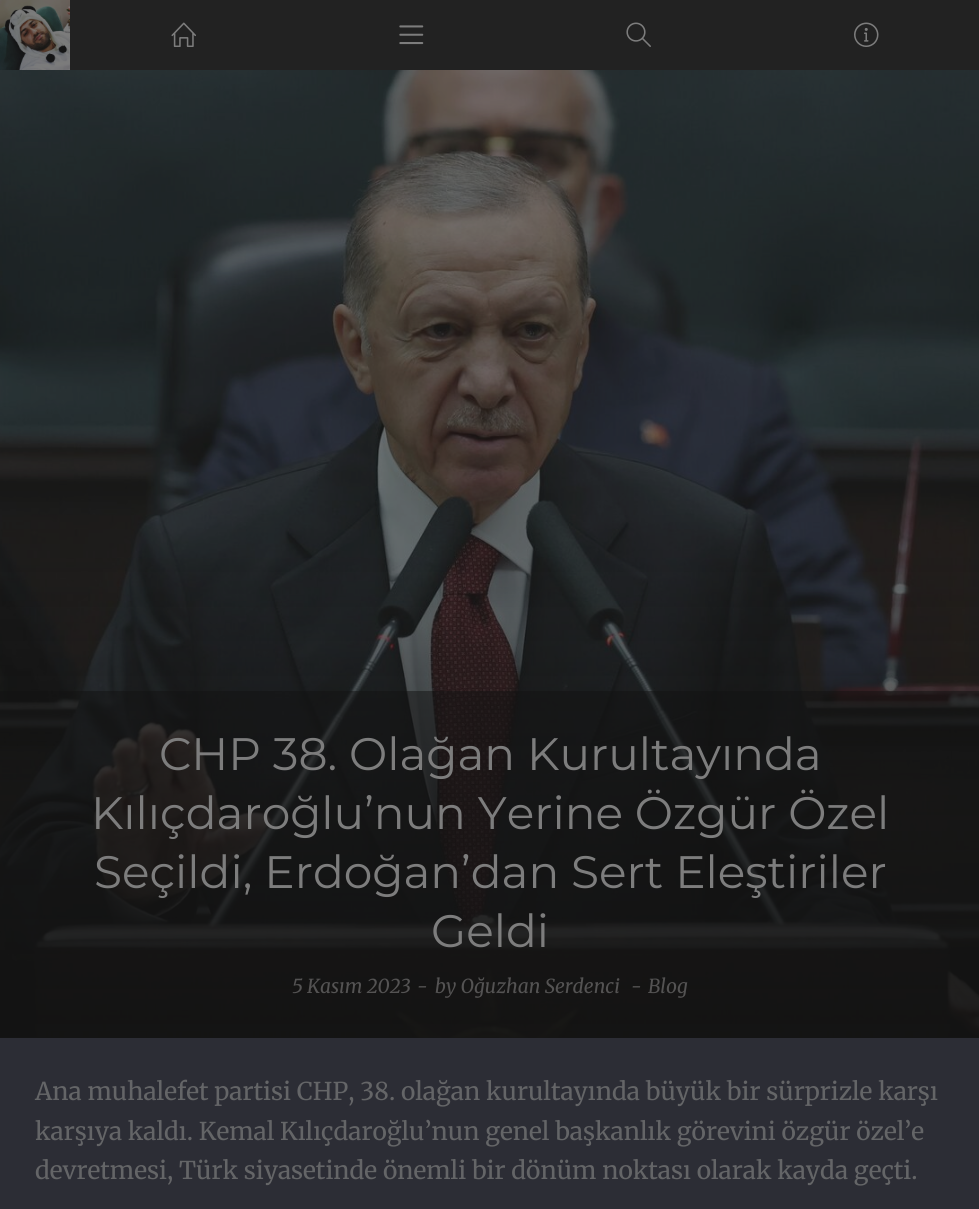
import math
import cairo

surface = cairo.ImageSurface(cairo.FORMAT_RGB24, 979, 1209)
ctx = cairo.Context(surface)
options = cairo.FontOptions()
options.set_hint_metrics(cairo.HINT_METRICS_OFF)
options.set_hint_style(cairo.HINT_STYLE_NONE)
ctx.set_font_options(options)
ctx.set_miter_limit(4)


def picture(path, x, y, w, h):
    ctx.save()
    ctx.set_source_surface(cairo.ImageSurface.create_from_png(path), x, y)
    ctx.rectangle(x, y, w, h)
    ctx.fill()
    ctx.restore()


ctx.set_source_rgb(0.133, 0.133, 0.133)
ctx.paint()
picture("img1.png", 0, 0, 70, 70)
picture("img2.png", 171, 22, 25, 25)
picture("img3.png", 399, 25, 25, 20)
picture("img4.png", 626, 22, 25, 25)
picture("img5.png", 854, 22, 25, 25)
ctx.set_source_rgb(0.173, 0.176, 0.208)
ctx.rectangle(0, 1037, 979, 172)
ctx.fill()
picture("img6.png", 0, 70, 979, 968)
gradient = cairo.LinearGradient(490, 70, 490, 1038)
gradient.add_color_stop_rgba(0.5, 0.078, 0.078, 0.078, 0.1)
gradient.add_color_stop_rgba(1, 0.078, 0.078, 0.078, 0.8)
ctx.set_source(gradient)
ctx.rectangle(0, 70, 979, 968)
ctx.fill()
ctx.set_source_rgba(0.078, 0.078, 0.078, 0.5)
ctx.rectangle(0, 691, 979, 347)
ctx.fill()
ctx.select_font_face("Montserrat Thin")
ctx.set_font_size(45.5)
ctx.set_source_rgb(0.49, 0.49, 0.49)
ctx.move_to(159, 770)
ctx.show_text("CHP 38. Olağan Kurultayında")
ctx.move_to(91, 829)
ctx.show_text("Kılıçdaroğlu’nun Yerine Özgür Özel")
ctx.move_to(94, 888)
ctx.show_text("Seçildi, Erdoğan’dan Sert Eleştiriler")
ctx.move_to(431, 947)
ctx.show_text("Geldi")
ctx.select_font_face("Merriweather", cairo.FONT_SLANT_ITALIC)
ctx.set_font_size(19.25)
ctx.set_source_rgb(0.329, 0.325, 0.325)
ctx.move_to(292, 993)
ctx.show_text("5 Kasım 2023")
ctx.move_to(417, 993)
ctx.show_text("-")
ctx.move_to(435, 993)
ctx.show_text("by Oğuzhan Serdenci")
ctx.move_to(631, 993)
ctx.show_text("-")
ctx.move_to(648, 993)
ctx.show_text("Blog")
ctx.select_font_face("Merriweather Light")
ctx.set_font_size(24.5)
ctx.set_source_rgb(0.392, 0.396, 0.404)
ctx.move_to(35, 1100)
ctx.show_text("Ana muhalefet partisi CHP, 38. olağan kurultayında büyük bir sürprizle karşı")
ctx.move_to(35, 1140)
ctx.show_text("karşıya kaldı. Kemal Kılıçdaroğlu’nun genel başkanlık görevini özgür özel’e")
ctx.move_to(35, 1179)
ctx.show_text("devretmesi, Türk siyasetinde önemli bir dönüm noktası olarak kayda geçti.")
surface.write_to_png("page.png")
